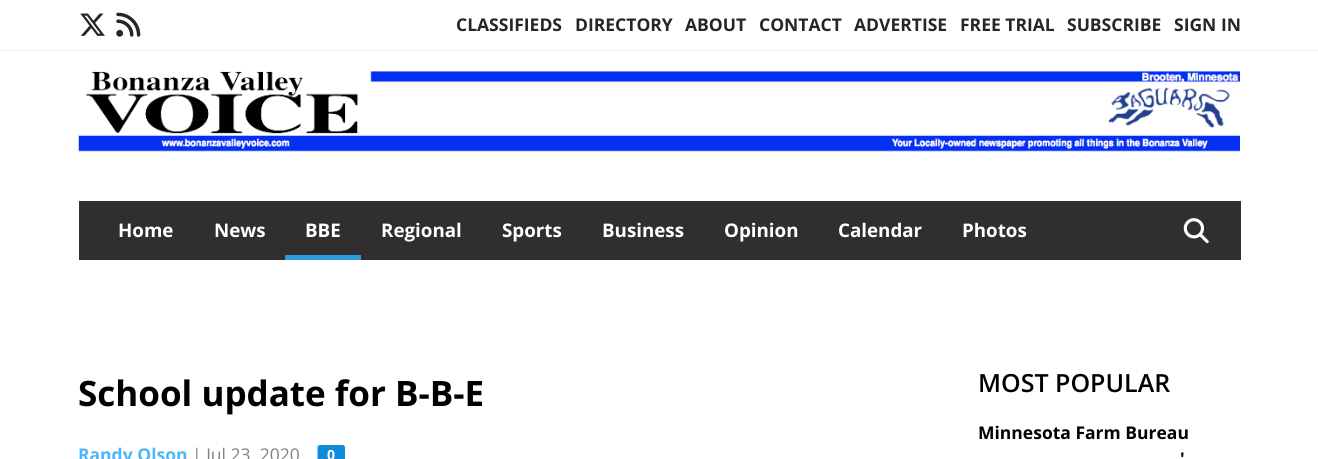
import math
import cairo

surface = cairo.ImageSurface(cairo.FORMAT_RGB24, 1318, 459)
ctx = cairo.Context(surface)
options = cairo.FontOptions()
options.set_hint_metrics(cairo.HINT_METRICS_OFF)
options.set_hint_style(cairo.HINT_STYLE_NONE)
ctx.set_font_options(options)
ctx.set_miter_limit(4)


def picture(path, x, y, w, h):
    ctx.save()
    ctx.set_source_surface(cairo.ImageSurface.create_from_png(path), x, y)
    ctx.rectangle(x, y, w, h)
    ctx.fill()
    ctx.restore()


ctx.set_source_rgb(1, 1, 1)
ctx.paint()
ctx.set_source_rgb(0.929, 0.929, 0.929)
ctx.rectangle(0, 50, 1318, 1)
ctx.fill()
picture("img1.png", 80, 13, 25, 23)
picture("img2.png", 116, 12, 25, 25)
ctx.select_font_face("Open Sans", cairo.FONT_SLANT_NORMAL, cairo.FONT_WEIGHT_BOLD)
ctx.set_font_size(17.5)
ctx.set_source_rgb(0.149, 0.149, 0.149)
ctx.move_to(456, 31)
ctx.show_text("CLASSIFIEDS")
ctx.move_to(575, 31)
ctx.show_text("DIRECTORY")
ctx.move_to(685, 31)
ctx.show_text("ABOUT")
ctx.move_to(759, 31)
ctx.show_text("CONTACT")
ctx.move_to(854, 31)
ctx.show_text("ADVERTISE")
ctx.move_to(960, 31)
ctx.show_text("FREE TRIAL")
ctx.move_to(1067, 31)
ctx.show_text("SUBSCRIBE")
ctx.move_to(1174, 31)
ctx.show_text("SIGN IN")
picture("img3.png", 78, 71, 1162, 81)
ctx.set_source_rgb(0.192, 0.18, 0.184)
ctx.rectangle(79, 201, 1162, 59)
ctx.fill()
ctx.set_font_size(18.75)
ctx.set_source_rgb(1, 1, 1)
ctx.move_to(118, 237)
ctx.show_text("Home")
ctx.move_to(214, 237)
ctx.show_text("News")
ctx.move_to(305, 237)
ctx.show_text("BBE")
ctx.set_source_rgb(0.18, 0.604, 0.878)
ctx.rectangle(285, 255, 76, 5)
ctx.fill()
ctx.set_source_rgb(1, 1, 1)
ctx.move_to(381, 237)
ctx.show_text("Regional")
ctx.move_to(502, 237)
ctx.show_text("Sports")
ctx.move_to(602, 237)
ctx.show_text("Business")
ctx.move_to(724, 237)
ctx.show_text("Opinion")
ctx.move_to(838, 237)
ctx.show_text("Calendar")
ctx.move_to(962, 237)
ctx.show_text("Photos")
picture("img4.png", 1183, 218, 26, 26)
ctx.set_font_size(35)
ctx.set_source_rgb(0, 0, 0)
ctx.move_to(78, 406)
ctx.show_text("School update for B-B-E")
ctx.set_font_size(17.5)
ctx.set_source_rgb(0.314, 0.71, 0.965)
ctx.move_to(78, 461)
ctx.show_text("Randy Olson")
ctx.select_font_face("Open Sans")
ctx.set_source_rgb(0.486, 0.514, 0.529)
ctx.move_to(192, 461)
ctx.show_text("| Jul 23, 2020")
picture("img5.png", 317, 445, 28, 14)
ctx.select_font_face("Open Sans", cairo.FONT_SLANT_NORMAL, cairo.FONT_WEIGHT_BOLD)
ctx.set_font_size(14)
ctx.set_source_rgb(1, 1, 1)
ctx.move_to(327, 460)
ctx.show_text("0")
ctx.select_font_face("Open Sans SemiBold")
ctx.set_font_size(25)
ctx.set_source_rgb(0, 0, 0)
ctx.move_to(978, 392)
ctx.show_text("MOST POPULAR")
ctx.select_font_face("Open Sans", cairo.FONT_SLANT_NORMAL, cairo.FONT_WEIGHT_BOLD)
ctx.set_font_size(17.5)
ctx.move_to(978, 439)
ctx.show_text("Minnesota Farm Bureau")
ctx.move_to(1180, 465)
ctx.show_text("'")
surface.write_to_png("page.png")
